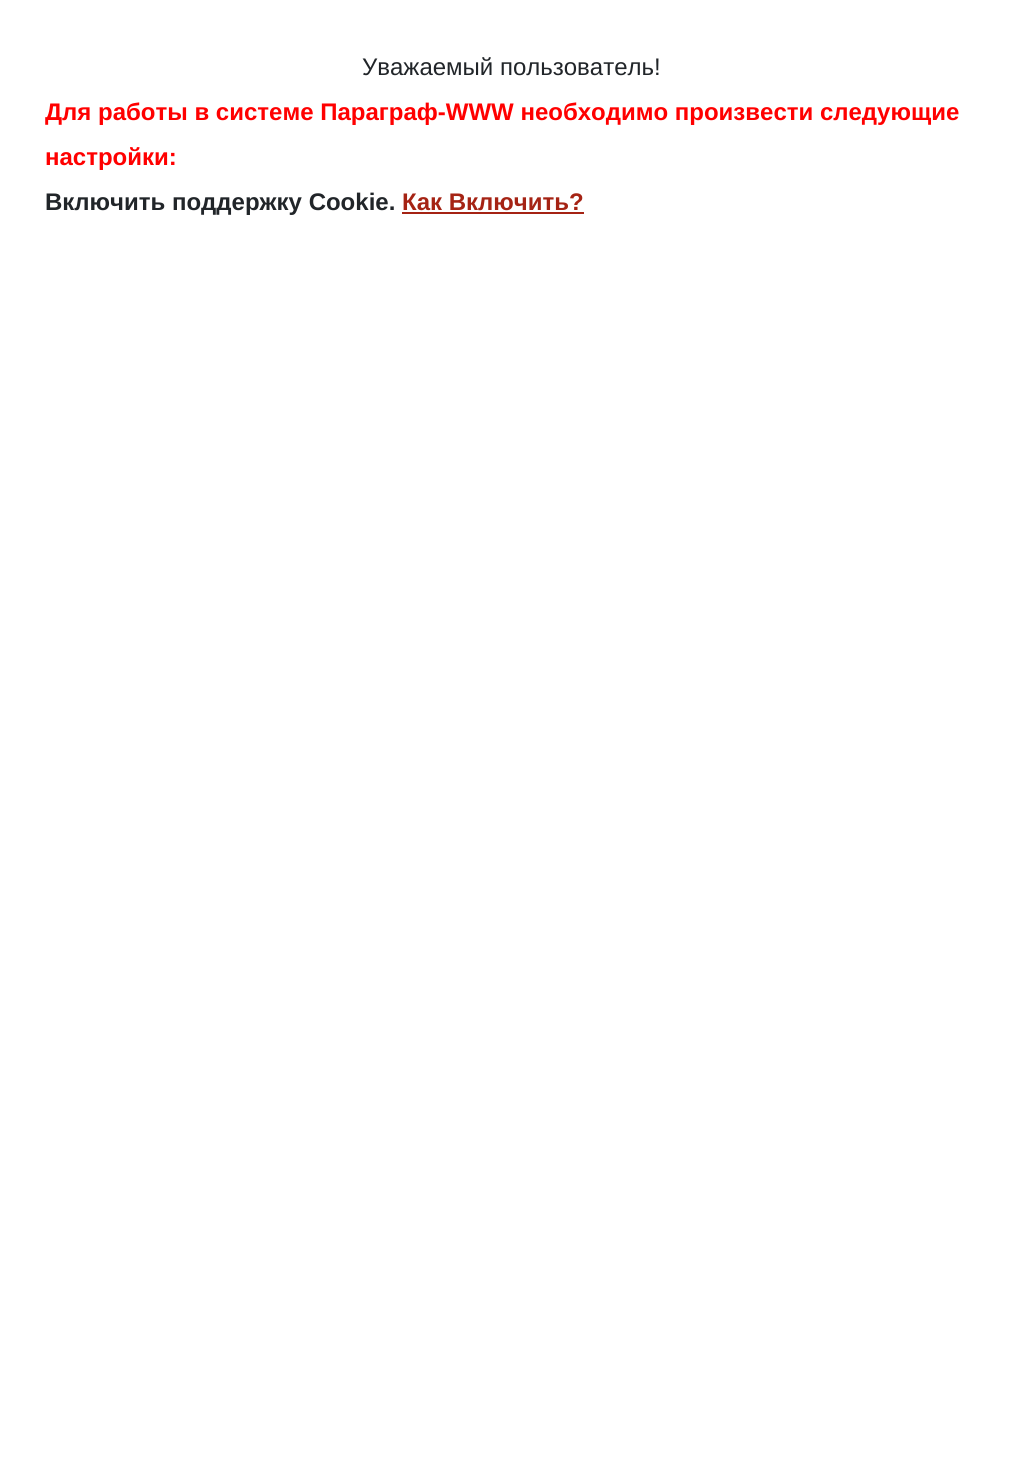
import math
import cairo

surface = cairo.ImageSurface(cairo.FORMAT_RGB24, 1023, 1470)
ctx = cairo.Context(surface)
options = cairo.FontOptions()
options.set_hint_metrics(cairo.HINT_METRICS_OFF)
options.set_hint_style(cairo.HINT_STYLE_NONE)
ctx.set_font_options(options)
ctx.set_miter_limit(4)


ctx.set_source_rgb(1, 1, 1)
ctx.paint()
ctx.select_font_face("Liberation Sans")
ctx.set_font_size(24)
ctx.set_source_rgb(0.129, 0.145, 0.161)
ctx.move_to(362, 75)
ctx.show_text("Уважаемый пользователь!")
ctx.select_font_face("Liberation Sans", cairo.FONT_SLANT_NORMAL, cairo.FONT_WEIGHT_BOLD)
ctx.set_source_rgb(1, 0, 0)
ctx.move_to(45, 120)
ctx.show_text("Для работы в системе Параграф-WWW необходимо произвести следующие")
ctx.move_to(45, 165)
ctx.show_text("настройки:")
ctx.set_source_rgb(0.129, 0.145, 0.161)
ctx.move_to(45, 210)
ctx.show_text("Включить поддержку Cookie.")
ctx.set_source_rgb(0.647, 0.137, 0.082)
ctx.move_to(402, 210)
ctx.show_text("Как Включить?")
ctx.rectangle(402, 212, 182, 2)
ctx.fill()
surface.write_to_png("page.png")
